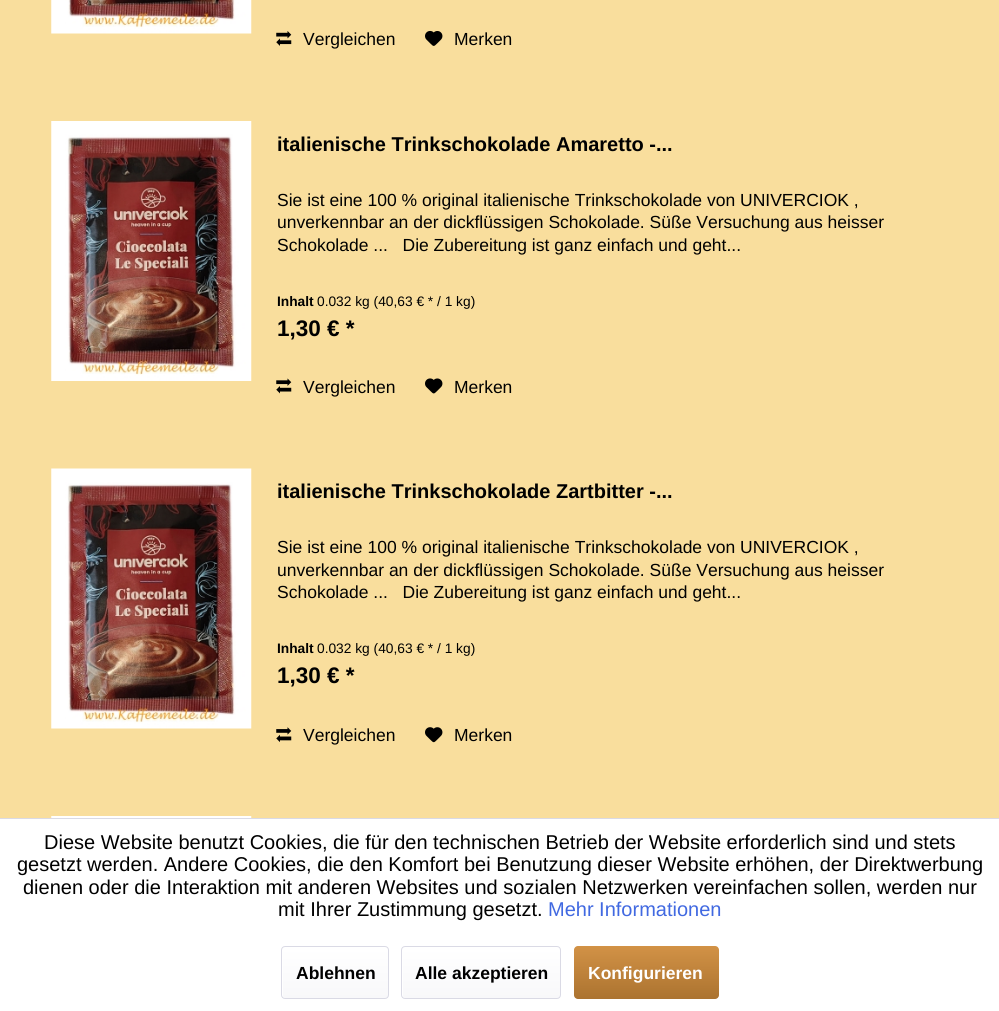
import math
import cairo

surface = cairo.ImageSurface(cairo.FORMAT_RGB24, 999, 1011)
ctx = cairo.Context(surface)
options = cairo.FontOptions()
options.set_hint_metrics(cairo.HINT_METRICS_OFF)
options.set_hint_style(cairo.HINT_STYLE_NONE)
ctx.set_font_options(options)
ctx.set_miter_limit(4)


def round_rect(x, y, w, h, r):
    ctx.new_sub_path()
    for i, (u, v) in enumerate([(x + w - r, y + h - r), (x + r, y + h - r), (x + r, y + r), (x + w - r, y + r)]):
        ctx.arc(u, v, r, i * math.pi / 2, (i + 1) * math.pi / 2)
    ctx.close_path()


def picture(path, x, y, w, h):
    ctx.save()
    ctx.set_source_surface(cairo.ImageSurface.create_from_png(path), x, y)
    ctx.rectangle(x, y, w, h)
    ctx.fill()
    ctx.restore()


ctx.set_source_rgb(0.976, 0.871, 0.616)
ctx.paint()
picture("img1.png", 51, 0, 201, 34)
picture("img2.png", 276, 31, 16, 15)
ctx.select_font_face("Liberation Sans")
ctx.set_font_size(17.5)
ctx.set_source_rgb(0, 0, 0)
ctx.move_to(303, 45)
ctx.show_text("Vergleichen")
picture("img3.png", 425, 30, 18, 16)
ctx.move_to(454, 45)
ctx.show_text("Merken")
picture("img4.png", 51, 121, 201, 260)
ctx.select_font_face("Liberation Sans", cairo.FONT_SLANT_NORMAL, cairo.FONT_WEIGHT_BOLD)
ctx.set_font_size(20)
ctx.move_to(277, 151)
ctx.show_text("italienische Trinkschokolade Amaretto -...")
ctx.select_font_face("Liberation Sans")
ctx.set_font_size(17.5)
ctx.move_to(277, 206)
ctx.show_text("Sie ist eine 100 % original italienische Trinkschokolade von UNIVERCIOK ,")
ctx.move_to(277, 228)
ctx.show_text("unverkennbar an der dickflüssigen Schokolade. Süße Versuchung aus heisser")
ctx.move_to(277, 251)
ctx.show_text("Schokolade ...   Die Zubereitung ist ganz einfach und geht...")
ctx.select_font_face("Liberation Sans", cairo.FONT_SLANT_NORMAL, cairo.FONT_WEIGHT_BOLD)
ctx.set_font_size(13.75)
ctx.move_to(277, 306)
ctx.show_text("Inhalt")
ctx.select_font_face("Liberation Sans")
ctx.move_to(317, 306)
ctx.show_text("0.032 kg (40,63 € * / 1 kg)")
ctx.select_font_face("Liberation Sans", cairo.FONT_SLANT_NORMAL, cairo.FONT_WEIGHT_BOLD)
ctx.set_font_size(22.5)
ctx.move_to(277, 336)
ctx.show_text("1,30 € *")
picture("img5.png", 276, 378, 16, 16)
ctx.select_font_face("Liberation Sans")
ctx.set_font_size(17.5)
ctx.move_to(303, 393)
ctx.show_text("Vergleichen")
picture("img6.png", 425, 378, 18, 16)
ctx.move_to(454, 393)
ctx.show_text("Merken")
picture("img7.png", 51, 468, 201, 261)
ctx.select_font_face("Liberation Sans", cairo.FONT_SLANT_NORMAL, cairo.FONT_WEIGHT_BOLD)
ctx.set_font_size(20)
ctx.move_to(277, 498)
ctx.show_text("italienische Trinkschokolade Zartbitter -...")
ctx.select_font_face("Liberation Sans")
ctx.set_font_size(17.5)
ctx.move_to(277, 553)
ctx.show_text("Sie ist eine 100 % original italienische Trinkschokolade von UNIVERCIOK ,")
ctx.move_to(277, 576)
ctx.show_text("unverkennbar an der dickflüssigen Schokolade. Süße Versuchung aus heisser")
ctx.move_to(277, 598)
ctx.show_text("Schokolade ...   Die Zubereitung ist ganz einfach und geht...")
ctx.select_font_face("Liberation Sans", cairo.FONT_SLANT_NORMAL, cairo.FONT_WEIGHT_BOLD)
ctx.set_font_size(13.75)
ctx.move_to(277, 653)
ctx.show_text("Inhalt")
ctx.select_font_face("Liberation Sans")
ctx.move_to(317, 653)
ctx.show_text("0.032 kg (40,63 € * / 1 kg)")
ctx.select_font_face("Liberation Sans", cairo.FONT_SLANT_NORMAL, cairo.FONT_WEIGHT_BOLD)
ctx.set_font_size(22.5)
ctx.move_to(277, 683)
ctx.show_text("1,30 € *")
picture("img8.png", 276, 727, 16, 15)
ctx.select_font_face("Liberation Sans")
ctx.set_font_size(17.5)
ctx.move_to(303, 741)
ctx.show_text("Vergleichen")
picture("img9.png", 425, 727, 18, 16)
ctx.move_to(454, 741)
ctx.show_text("Merken")
picture("img10.png", 51, 816, 201, 2)
ctx.set_source_rgb(1, 1, 1)
ctx.rectangle(0, 819, 999, 192)
ctx.fill()
ctx.set_source_rgb(0.855, 0.855, 0.898)
ctx.rectangle(0, 818, 999, 1)
ctx.fill()
ctx.set_font_size(20)
ctx.set_source_rgb(0, 0, 0)
ctx.move_to(44, 849)
ctx.show_text("Diese Website benutzt Cookies, die für den technischen Betrieb der Website erforderlich sind und stets")
ctx.move_to(17, 871)
ctx.show_text("gesetzt werden. Andere Cookies, die den Komfort bei Benutzung dieser Website erhöhen, der Direktwerbung")
ctx.move_to(23, 894)
ctx.show_text("dienen oder die Interaktion mit anderen Websites und sozialen Netzwerken vereinfachen sollen, werden nur")
ctx.move_to(278, 916)
ctx.show_text("mit Ihrer Zustimmung gesetzt.")
ctx.set_source_rgb(0.255, 0.412, 0.882)
ctx.move_to(548, 916)
ctx.show_text("Mehr Informationen")
gradient = cairo.LinearGradient(335, 948, 335, 998)
gradient.add_color_stop_rgba(0, 1, 1, 1, 1)
gradient.add_color_stop_rgba(1, 0.973, 0.973, 0.98, 1)
ctx.set_source(gradient)
round_rect(283, 948, 105, 50, 2.5)
ctx.fill()
round_rect(281.5, 946.5, 107, 52, 3.5)
ctx.set_source_rgb(0.855, 0.855, 0.898)
ctx.set_line_width(1)
ctx.stroke()
ctx.select_font_face("Liberation Sans", cairo.FONT_SLANT_NORMAL, cairo.FONT_WEIGHT_BOLD)
ctx.set_font_size(17.5)
ctx.set_source_rgb(0, 0, 0)
ctx.move_to(296, 979)
ctx.show_text("Ablehnen")
gradient = cairo.LinearGradient(481, 948, 481, 998)
gradient.add_color_stop_rgba(0, 1, 1, 1, 1)
gradient.add_color_stop_rgba(1, 0.973, 0.973, 0.98, 1)
ctx.set_source(gradient)
round_rect(403, 948, 157, 50, 2.5)
ctx.fill()
round_rect(401.5, 946.5, 159, 52, 3.5)
ctx.set_source_rgb(0.855, 0.855, 0.898)
ctx.stroke()
ctx.set_source_rgb(0, 0, 0)
ctx.move_to(415, 979)
ctx.show_text("Alle akzeptieren")
gradient = cairo.LinearGradient(646, 946, 646, 999)
gradient.add_color_stop_rgba(0, 0.824, 0.573, 0.275, 1)
gradient.add_color_stop_rgba(1, 0.671, 0.451, 0.188, 1)
ctx.set_source(gradient)
round_rect(574, 946, 145, 53, 4)
ctx.fill()
ctx.set_source_rgb(1, 1, 1)
ctx.move_to(588, 979)
ctx.show_text("Konfigurieren")
surface.write_to_png("page.png")
